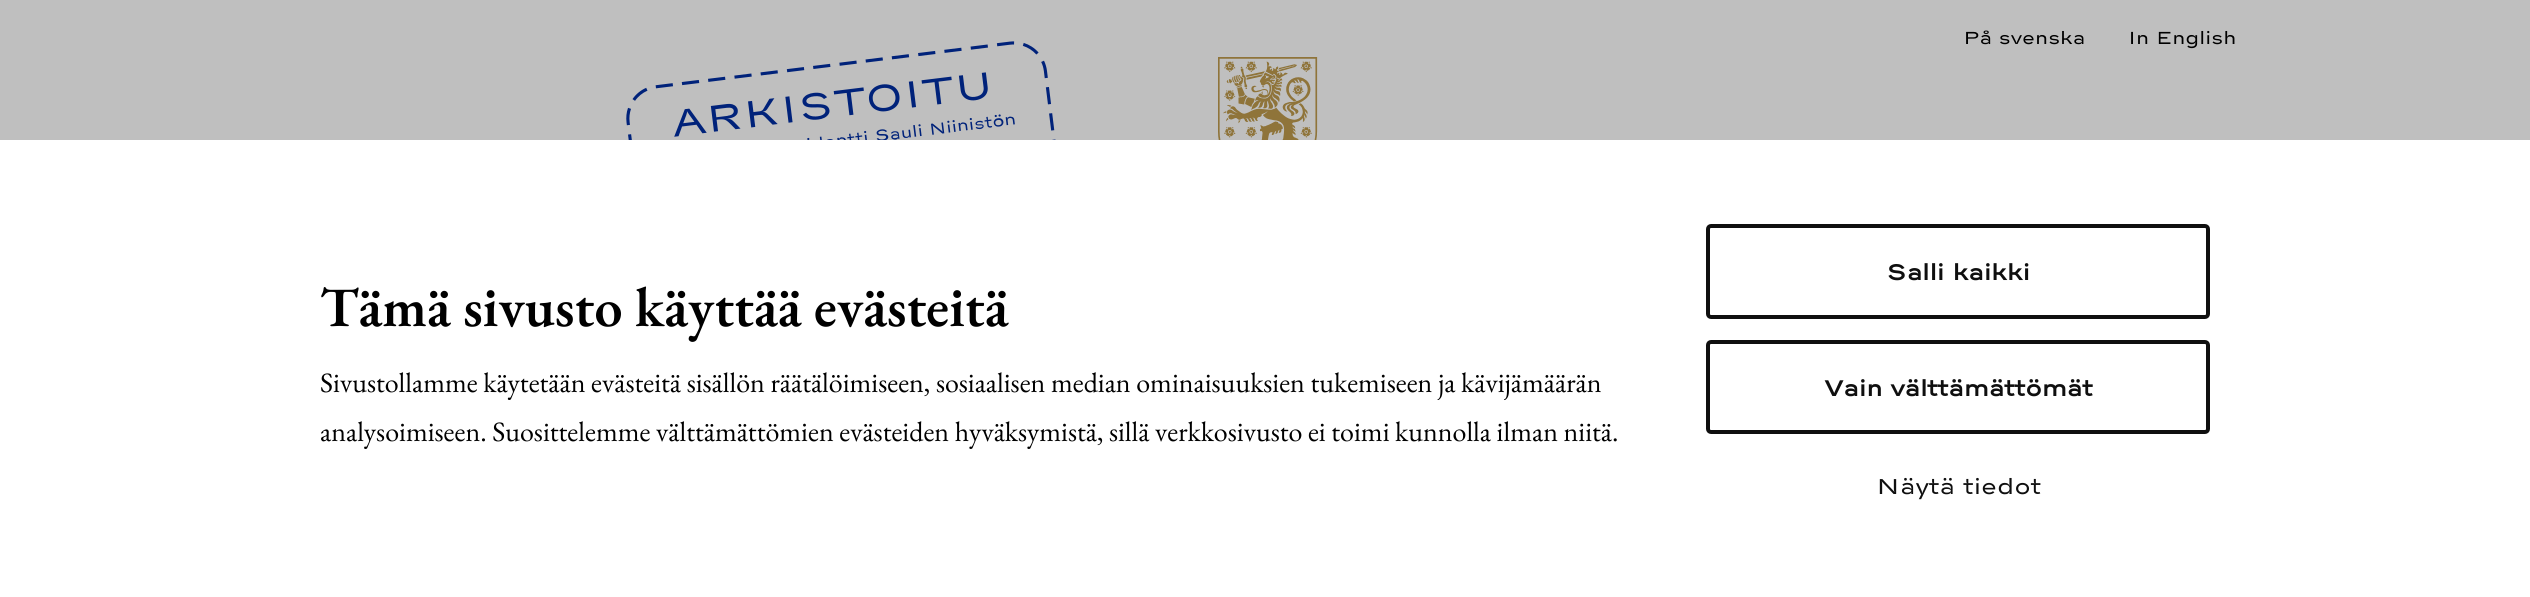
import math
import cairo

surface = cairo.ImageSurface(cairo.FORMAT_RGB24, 2530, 597)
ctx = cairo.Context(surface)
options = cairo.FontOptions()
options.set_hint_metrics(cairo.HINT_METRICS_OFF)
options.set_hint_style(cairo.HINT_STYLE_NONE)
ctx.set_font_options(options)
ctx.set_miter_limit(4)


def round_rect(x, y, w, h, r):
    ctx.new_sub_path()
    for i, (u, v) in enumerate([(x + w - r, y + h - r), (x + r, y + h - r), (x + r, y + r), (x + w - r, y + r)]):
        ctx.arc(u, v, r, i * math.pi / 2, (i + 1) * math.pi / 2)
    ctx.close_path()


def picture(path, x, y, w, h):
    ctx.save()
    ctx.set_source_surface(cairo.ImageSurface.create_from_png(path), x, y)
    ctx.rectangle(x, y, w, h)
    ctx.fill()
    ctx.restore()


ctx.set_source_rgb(0.749, 0.749, 0.749)
ctx.paint()
picture("img1.png", 626, 41, 430, 99)
picture("img2.png", 1218, 57, 100, 83)
ctx.select_font_face("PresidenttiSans")
ctx.set_font_size(22.75)
ctx.set_source_rgb(0, 0, 0)
ctx.move_to(1963, 44)
ctx.show_text("På svenska")
ctx.move_to(2128, 44)
ctx.show_text("In English")
ctx.set_source_rgb(1, 1, 1)
ctx.rectangle(0, 140, 2530, 457)
ctx.fill()
ctx.select_font_face("EB Garamond SemiBold")
ctx.set_font_size(56)
ctx.set_source_rgb(0, 0, 0)
ctx.move_to(320, 326)
ctx.show_text("Tämä sivusto käyttää evästeitä")
ctx.select_font_face("EB Garamond")
ctx.set_font_size(28)
ctx.move_to(320, 392)
ctx.show_text("Sivustollamme käytetään evästeitä sisällön räätälöimiseen, sosiaalisen median ominaisuuksien tukemiseen ja kävijämäärän")
ctx.move_to(320, 441)
ctx.show_text("analysoimiseen. Suosittelemme välttämättömien evästeiden hyväksymistä, sillä verkkosivusto ei toimi kunnolla ilman niitä.")
round_rect(1708, 226, 500, 91, 3)
ctx.set_source_rgb(0.059, 0.059, 0.059)
ctx.set_line_width(4)
ctx.stroke()
ctx.select_font_face("PresidenttiSans", cairo.FONT_SLANT_NORMAL, cairo.FONT_WEIGHT_BOLD)
ctx.move_to(1886, 280)
ctx.show_text("Salli kaikki")
round_rect(1708, 342, 500, 90, 3)
ctx.stroke()
ctx.move_to(1824, 396)
ctx.show_text("Vain välttämättömät")
ctx.select_font_face("PresidenttiSans")
ctx.move_to(1876, 494)
ctx.show_text("Näytä tiedot")
surface.write_to_png("page.png")
